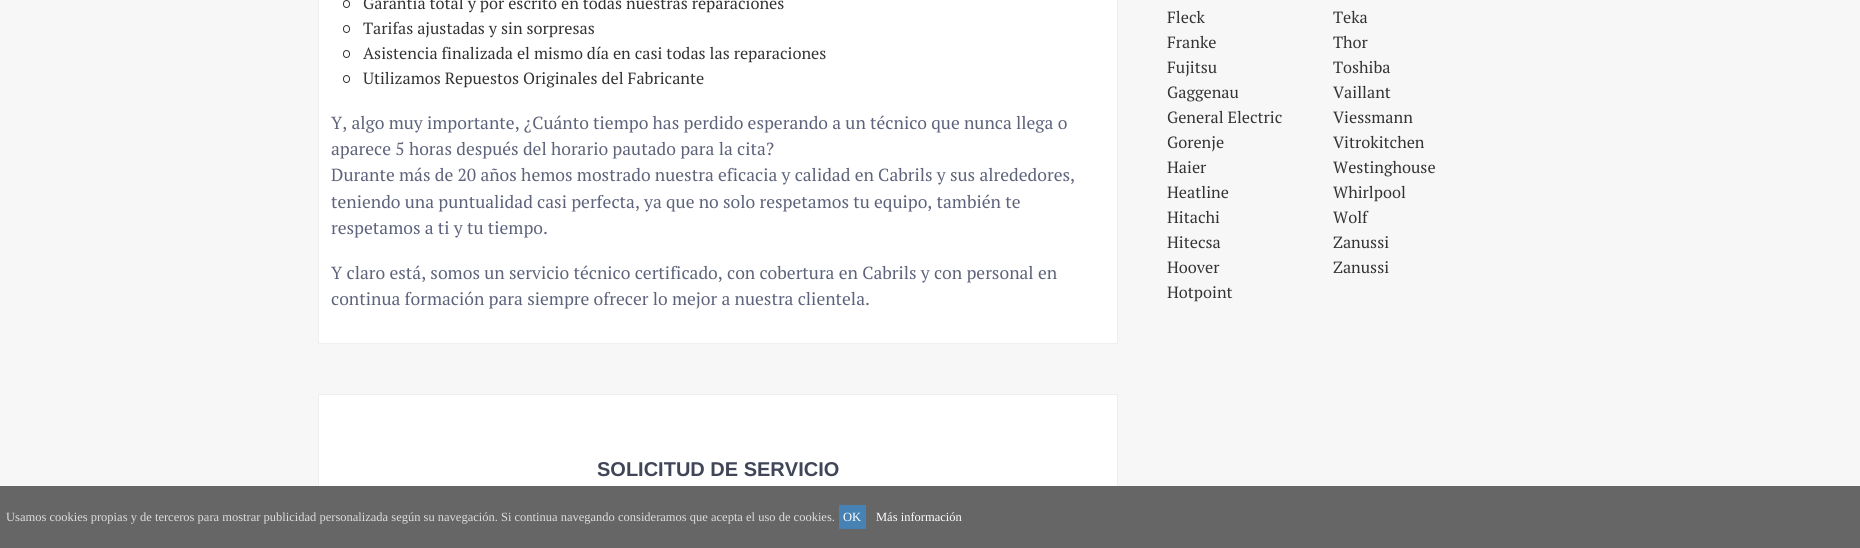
import math
import cairo

surface = cairo.ImageSurface(cairo.FORMAT_RGB24, 1860, 548)
ctx = cairo.Context(surface)
options = cairo.FontOptions()
options.set_hint_metrics(cairo.HINT_METRICS_OFF)
options.set_hint_style(cairo.HINT_STYLE_NONE)
ctx.set_font_options(options)
ctx.set_miter_limit(4)


def round_rect(x, y, w, h, r):
    ctx.new_sub_path()
    for i, (u, v) in enumerate([(x + w - r, y + h - r), (x + r, y + h - r), (x + r, y + r), (x + w - r, y + r)]):
        ctx.arc(u, v, r, i * math.pi / 2, (i + 1) * math.pi / 2)
    ctx.close_path()


ctx.set_source_rgb(0.969, 0.965, 0.965)
ctx.paint()
ctx.set_source_rgb(1, 1, 1)
ctx.rectangle(318.5, -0.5, 799, 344)
ctx.fill_preserve()
ctx.set_source_rgb(0.937, 0.937, 0.937)
ctx.set_line_width(1)
ctx.stroke()
round_rect(343.5, 0.5, 6, 7, 3)
ctx.set_source_rgb(0.2, 0.2, 0.2)
ctx.stroke()
ctx.select_font_face("PT Serif")
ctx.set_font_size(16.25)
ctx.move_to(363, 9)
ctx.show_text("Garantía total y por escrito en todas nuestras reparaciones")
round_rect(343.5, 25.5, 6, 7, 3)
ctx.stroke()
ctx.move_to(363, 34)
ctx.show_text("Tarifas ajustadas y sin sorpresas")
round_rect(343.5, 50.5, 6, 7, 3)
ctx.stroke()
ctx.move_to(363, 59)
ctx.show_text("Asistencia finalizada el mismo día en casi todas las reparaciones")
round_rect(343.5, 75.5, 6, 7, 3)
ctx.stroke()
ctx.move_to(363, 84)
ctx.show_text("Utilizamos Repuestos Originales del Fabricante")
ctx.set_font_size(17.5)
ctx.set_source_rgb(0.369, 0.388, 0.482)
ctx.move_to(331, 129)
ctx.show_text("Y, algo muy importante, ¿Cuánto tiempo has perdido esperando a un técnico que nunca llega o")
ctx.move_to(331, 155)
ctx.show_text("aparece 5 horas después del horario pautado para la cita?")
ctx.move_to(331, 181)
ctx.show_text("Durante más de 20 años hemos mostrado nuestra eficacia y calidad en Cabrils y sus alrededores,")
ctx.move_to(331, 208)
ctx.show_text("teniendo una puntualidad casi perfecta, ya que no solo respetamos tu equipo, también te")
ctx.move_to(331, 234)
ctx.show_text("respetamos a ti y tu tiempo.")
ctx.move_to(331, 279)
ctx.show_text("Y claro está, somos un servicio técnico certificado, con cobertura en Cabrils y con personal en")
ctx.move_to(331, 305)
ctx.show_text("continua formación para siempre ofrecer lo mejor a nuestra clientela.")
ctx.set_source_rgb(1, 1, 1)
ctx.rectangle(319, 395, 798, 91)
ctx.fill()
ctx.rectangle(318.5, 394.5, 799, 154)
ctx.set_source_rgb(0.937, 0.937, 0.937)
ctx.stroke()
ctx.select_font_face("Liberation Sans", cairo.FONT_SLANT_NORMAL, cairo.FONT_WEIGHT_BOLD)
ctx.set_font_size(20)
ctx.set_source_rgb(0.255, 0.271, 0.345)
ctx.move_to(597, 476)
ctx.show_text("SOLICITUD DE SERVICIO")
ctx.select_font_face("PT Serif")
ctx.set_font_size(16.25)
ctx.set_source_rgb(0.2, 0.2, 0.2)
ctx.move_to(1167, 23)
ctx.show_text("Fleck")
ctx.move_to(1167, 48)
ctx.show_text("Franke")
ctx.move_to(1167, 73)
ctx.show_text("Fujitsu")
ctx.move_to(1167, 98)
ctx.show_text("Gaggenau")
ctx.move_to(1167, 123)
ctx.show_text("General Electric")
ctx.move_to(1167, 148)
ctx.show_text("Gorenje")
ctx.move_to(1167, 173)
ctx.show_text("Haier")
ctx.move_to(1167, 198)
ctx.show_text("Heatline")
ctx.move_to(1167, 223)
ctx.show_text("Hitachi")
ctx.move_to(1167, 248)
ctx.show_text("Hitecsa")
ctx.move_to(1167, 273)
ctx.show_text("Hoover")
ctx.move_to(1167, 298)
ctx.show_text("Hotpoint")
ctx.move_to(1333, 23)
ctx.show_text("Teka")
ctx.move_to(1333, 48)
ctx.show_text("Thor")
ctx.move_to(1333, 73)
ctx.show_text("Toshiba")
ctx.move_to(1333, 98)
ctx.show_text("Vaillant")
ctx.move_to(1333, 123)
ctx.show_text("Viessmann")
ctx.move_to(1333, 148)
ctx.show_text("Vitrokitchen")
ctx.move_to(1333, 173)
ctx.show_text("Westinghouse")
ctx.move_to(1333, 198)
ctx.show_text("Whirlpool")
ctx.move_to(1333, 223)
ctx.show_text("Wolf")
ctx.move_to(1333, 248)
ctx.show_text("Zanussi")
ctx.move_to(1333, 273)
ctx.show_text("Zanussi")
ctx.set_source_rgb(0.4, 0.4, 0.4)
ctx.rectangle(0, 486, 1860, 62)
ctx.fill()
ctx.select_font_face("Liberation Serif")
ctx.set_font_size(12.5)
ctx.set_source_rgb(0.867, 0.867, 0.867)
ctx.move_to(6, 521)
ctx.show_text("Usamos cookies propias y de terceros para mostrar publicidad personalizada según su navegación. Si continua navegando consideramos que acepta el uso de cookies.")
ctx.set_source_rgb(0.275, 0.51, 0.706)
ctx.rectangle(839, 505, 27, 24)
ctx.fill()
ctx.set_source_rgb(1, 1, 1)
ctx.move_to(843, 521)
ctx.show_text("OK")
ctx.move_to(876, 521)
ctx.show_text("Más información")
surface.write_to_png("page.png")
